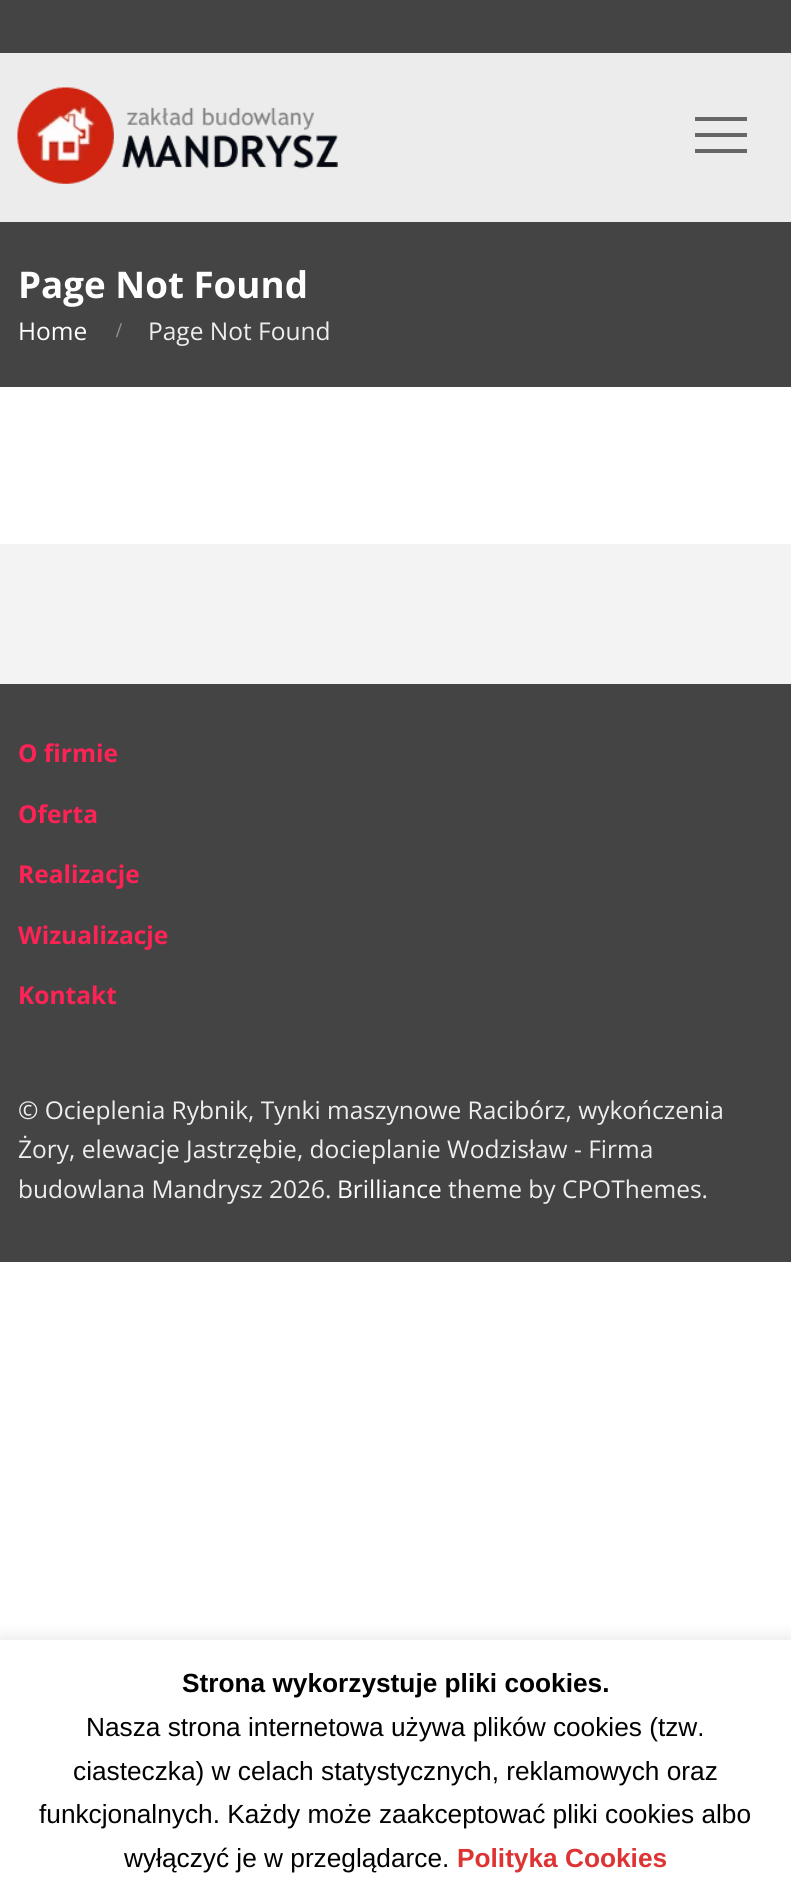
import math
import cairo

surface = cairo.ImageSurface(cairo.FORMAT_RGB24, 791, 1899)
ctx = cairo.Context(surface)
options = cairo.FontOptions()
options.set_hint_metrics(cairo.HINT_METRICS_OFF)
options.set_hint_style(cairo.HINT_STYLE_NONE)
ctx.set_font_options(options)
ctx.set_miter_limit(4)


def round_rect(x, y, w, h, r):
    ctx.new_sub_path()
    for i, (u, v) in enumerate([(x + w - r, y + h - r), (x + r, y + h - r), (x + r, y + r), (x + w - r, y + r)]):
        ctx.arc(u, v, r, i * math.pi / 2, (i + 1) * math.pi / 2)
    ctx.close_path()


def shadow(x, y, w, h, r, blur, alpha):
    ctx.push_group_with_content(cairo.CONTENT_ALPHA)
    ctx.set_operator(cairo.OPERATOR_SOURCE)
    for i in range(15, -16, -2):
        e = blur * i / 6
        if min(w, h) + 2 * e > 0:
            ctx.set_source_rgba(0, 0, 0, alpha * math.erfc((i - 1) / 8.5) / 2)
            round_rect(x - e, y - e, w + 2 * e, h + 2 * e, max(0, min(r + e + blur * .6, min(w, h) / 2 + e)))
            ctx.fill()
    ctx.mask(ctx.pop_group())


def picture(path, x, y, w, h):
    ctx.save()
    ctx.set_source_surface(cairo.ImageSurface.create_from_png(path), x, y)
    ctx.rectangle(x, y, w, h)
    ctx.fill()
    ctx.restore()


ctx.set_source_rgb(1, 1, 1)
ctx.paint()
ctx.set_source_rgb(0.267, 0.267, 0.267)
ctx.rectangle(0, 0, 791, 387)
ctx.fill()
ctx.set_source_rgb(0.925, 0.925, 0.925)
ctx.rectangle(0, 53, 791, 169)
ctx.fill()
picture("img1.png", 17, 87, 321, 97)
ctx.set_source_rgb(0.4, 0.4, 0.4)
ctx.rectangle(695, 117, 52, 4)
ctx.fill()
ctx.rectangle(695, 149, 52, 4)
ctx.fill()
ctx.rectangle(695, 133, 52, 4)
ctx.fill()
ctx.select_font_face("Open Sans", cairo.FONT_SLANT_NORMAL, cairo.FONT_WEIGHT_BOLD)
ctx.set_font_size(36.75)
ctx.set_source_rgb(1, 1, 1)
ctx.move_to(18, 298)
ctx.show_text("Page Not Found")
ctx.select_font_face("Open Sans")
ctx.set_font_size(24.5)
ctx.move_to(18, 340)
ctx.show_text("Home")
ctx.select_font_face("Liberation Serif", cairo.FONT_SLANT_NORMAL, cairo.FONT_WEIGHT_BOLD)
ctx.set_font_size(21)
ctx.set_source_rgb(0.569, 0.569, 0.569)
ctx.move_to(116, 337)
ctx.show_text("/")
ctx.select_font_face("Open Sans")
ctx.set_font_size(24.5)
ctx.set_source_rgb(0.933, 0.933, 0.933)
ctx.move_to(148, 340)
ctx.show_text("Page Not Found")
ctx.set_source_rgb(0.953, 0.953, 0.953)
ctx.rectangle(0, 544, 791, 140)
ctx.fill()
ctx.set_source_rgb(0.267, 0.267, 0.267)
ctx.rectangle(0, 684, 791, 578)
ctx.fill()
ctx.select_font_face("Open Sans", cairo.FONT_SLANT_NORMAL, cairo.FONT_WEIGHT_BOLD)
ctx.set_source_rgb(1, 0.133, 0.333)
ctx.move_to(18, 762)
ctx.show_text("O firmie")
ctx.move_to(18, 823)
ctx.show_text("Oferta")
ctx.move_to(18, 883)
ctx.show_text("Realizacje")
ctx.move_to(18, 944)
ctx.show_text("Wizualizacje")
ctx.move_to(18, 1004)
ctx.show_text("Kontakt")
ctx.select_font_face("Open Sans")
ctx.set_source_rgb(0.933, 0.933, 0.933)
ctx.move_to(18, 1119)
ctx.show_text("© Ocieplenia Rybnik, Tynki maszynowe Racibórz, wykończenia")
ctx.move_to(18, 1158)
ctx.show_text("Żory, elewacje Jastrzębie, docieplanie Wodzisław - Firma")
ctx.move_to(18, 1198)
ctx.show_text("budowlana Mandrysz 2026.")
ctx.set_source_rgb(1, 1, 1)
ctx.move_to(337, 1198)
ctx.show_text("Brilliance")
ctx.set_source_rgb(0.933, 0.933, 0.933)
ctx.move_to(448, 1198)
ctx.show_text("theme by CPOThemes.")
ctx.save()
ctx.rectangle(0, 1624, 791, 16)
ctx.clip()
ctx.set_source_rgb(0.675, 0.671, 0.671)
shadow(0, 1638, 791, 261, 0, 9, 0.3)
ctx.restore()
ctx.select_font_face("Liberation Sans", cairo.FONT_SLANT_NORMAL, cairo.FONT_WEIGHT_BOLD)
ctx.set_font_size(26.25)
ctx.set_source_rgb(0, 0, 0)
ctx.move_to(182, 1692)
ctx.show_text("Strona wykorzystuje pliki cookies.")
ctx.select_font_face("Liberation Sans")
ctx.move_to(86, 1736)
ctx.show_text("Nasza strona internetowa używa plików cookies (tzw.")
ctx.move_to(73, 1780)
ctx.show_text("ciasteczka) w celach statystycznych, reklamowych oraz")
ctx.move_to(39, 1823)
ctx.show_text("funkcjonalnych. Każdy może zaakceptować pliki cookies albo")
ctx.move_to(124, 1867)
ctx.show_text("wyłączyć je w przeglądarce.")
ctx.select_font_face("Liberation Sans", cairo.FONT_SLANT_NORMAL, cairo.FONT_WEIGHT_BOLD)
ctx.set_source_rgb(0.867, 0.2, 0.2)
ctx.move_to(457, 1867)
ctx.show_text("Polityka Cookies")
surface.write_to_png("page.png")
